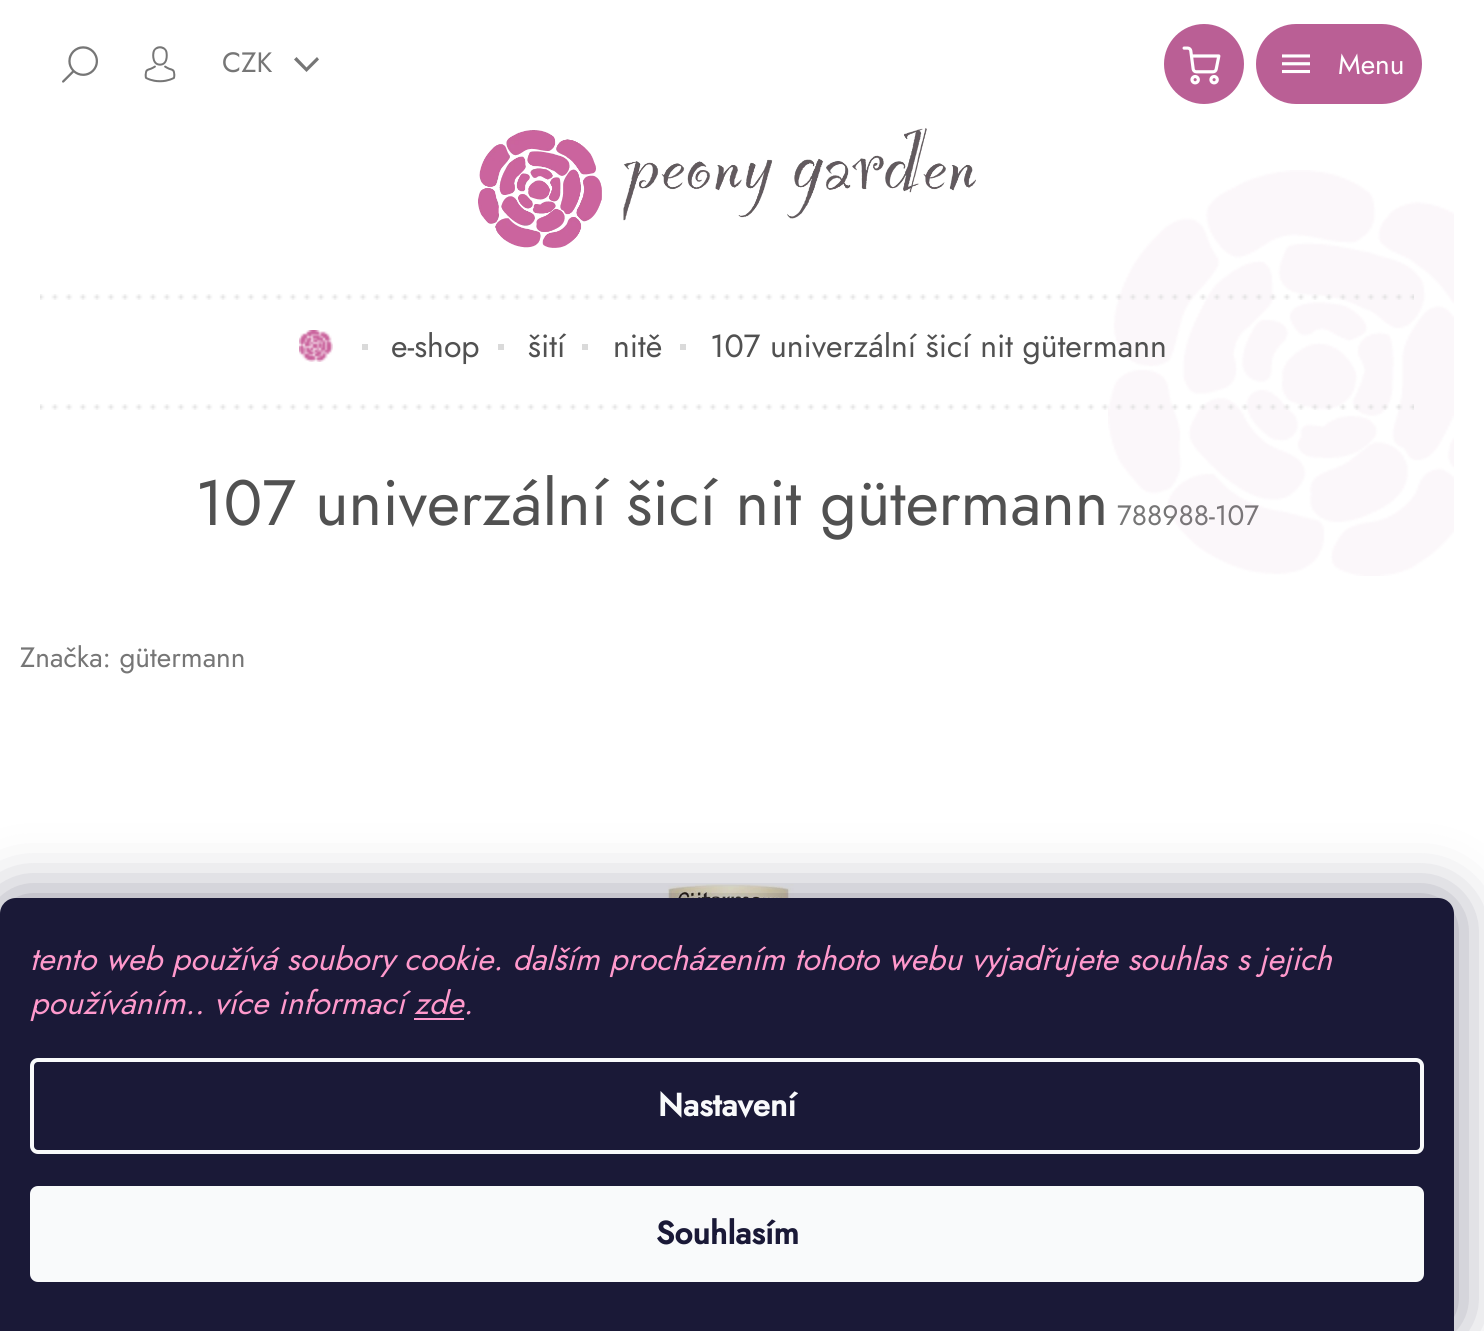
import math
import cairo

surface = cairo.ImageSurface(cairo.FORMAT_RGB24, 1484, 1331)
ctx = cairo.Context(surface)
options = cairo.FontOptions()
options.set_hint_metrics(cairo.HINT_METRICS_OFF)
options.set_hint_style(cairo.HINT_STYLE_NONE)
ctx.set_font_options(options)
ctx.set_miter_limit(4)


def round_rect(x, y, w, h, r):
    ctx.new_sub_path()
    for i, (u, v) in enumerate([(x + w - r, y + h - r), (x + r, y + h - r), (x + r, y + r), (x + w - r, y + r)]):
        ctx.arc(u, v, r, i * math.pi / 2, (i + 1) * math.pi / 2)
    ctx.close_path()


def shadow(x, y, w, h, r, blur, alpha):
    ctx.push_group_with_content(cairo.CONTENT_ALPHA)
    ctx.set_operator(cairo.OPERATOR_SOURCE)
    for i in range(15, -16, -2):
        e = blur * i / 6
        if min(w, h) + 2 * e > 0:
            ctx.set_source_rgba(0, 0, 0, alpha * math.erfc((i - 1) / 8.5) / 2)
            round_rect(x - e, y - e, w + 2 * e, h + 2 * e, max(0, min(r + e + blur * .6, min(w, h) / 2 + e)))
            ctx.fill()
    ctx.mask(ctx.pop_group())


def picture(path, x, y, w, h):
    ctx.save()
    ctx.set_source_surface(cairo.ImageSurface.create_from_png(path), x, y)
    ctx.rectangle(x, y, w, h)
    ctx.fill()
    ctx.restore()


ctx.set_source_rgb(1, 1, 1)
ctx.paint()
ctx.set_source_rgb(0.729, 0.373, 0.584)
ctx.arc(1204, 64, 40, 0, 2 * math.pi)
ctx.fill()
picture("img1.png", 1182, 46, 39, 39)
picture("img2.png", 478, 128, 498, 120)
ctx.select_font_face("Jost")
ctx.set_font_size(28)
ctx.set_source_rgb(0.463, 0.463, 0.463)
ctx.move_to(1117, 525)
ctx.show_text("788988-107")
picture("img3.png", 1108, 170, 346, 406)
ctx.move_to(222, 72)
ctx.show_text("CZK")
ctx.new_path()
ctx.move_to(294, 59.5)
ctx.line_to(296.5, 57)
ctx.line_to(306.5, 67.5)
ctx.line_to(317, 57)
ctx.line_to(319, 59.5)
ctx.line_to(306.5, 72)
ctx.close_path()
ctx.fill()
picture("img4.png", 62, 46, 36, 37)
picture("img5.png", 144, 46, 32, 37)
ctx.set_source_rgb(0.729, 0.373, 0.584)
round_rect(1256, 24, 166, 80, 40)
ctx.fill()
picture("img6.png", 1282, 54, 28, 20)
ctx.set_source_rgb(1, 1, 1)
ctx.move_to(1338, 74)
ctx.show_text("Menu")
picture("img7.png", 40, 294, 1374, 116)
picture("img8.png", 299, 330, 34, 32)
ctx.set_source_rgb(0.855, 0.855, 0.855)
ctx.rectangle(362, 344, 6, 6)
ctx.fill()
ctx.set_font_size(32)
ctx.set_source_rgb(0.318, 0.318, 0.318)
ctx.move_to(391, 357)
ctx.show_text("e-shop")
ctx.set_source_rgb(0.855, 0.855, 0.855)
ctx.rectangle(498, 344, 6, 6)
ctx.fill()
ctx.set_source_rgb(0.318, 0.318, 0.318)
ctx.move_to(528, 357)
ctx.show_text("šití")
ctx.set_source_rgb(0.855, 0.855, 0.855)
ctx.rectangle(582, 344, 6, 6)
ctx.fill()
ctx.set_source_rgb(0.318, 0.318, 0.318)
ctx.move_to(613, 357)
ctx.show_text("nitě")
ctx.set_source_rgb(0.855, 0.855, 0.855)
ctx.rectangle(680, 344, 6, 6)
ctx.fill()
ctx.set_source_rgb(0.318, 0.318, 0.318)
ctx.move_to(710, 357)
ctx.show_text("107 univerzální šicí nit gütermann")
ctx.set_font_size(64)
ctx.move_to(195, 525)
ctx.show_text("107 univerzální šicí nit gütermann")
ctx.set_font_size(28)
ctx.set_source_rgb(0.463, 0.463, 0.463)
ctx.move_to(20, 667)
ctx.show_text("Značka: gütermann")
picture("img9.png", 663, 884, 131, 14)
ctx.set_source_rgb(0.106, 0.098, 0.224)
shadow(0, 898, 1454, 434, 16, 30, 0.5)
ctx.set_source_rgb(0.102, 0.098, 0.216)
ctx.new_path()
ctx.move_to(16, 898)
ctx.line_to(1438, 898)
ctx.curve_to(1447, 898, 1454, 905, 1454, 914)
ctx.line_to(1454, 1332)
ctx.line_to(0, 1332)
ctx.line_to(0, 914)
ctx.curve_to(0, 905, 7, 898, 16, 898)
ctx.close_path()
ctx.fill()
ctx.select_font_face("Jost", cairo.FONT_SLANT_ITALIC)
ctx.set_font_size(32)
ctx.set_source_rgb(1, 0.6, 0.8)
ctx.move_to(30, 970)
ctx.show_text("tento web používá soubory cookie. dalším procházením tohoto webu vyjadřujete souhlas s jejich")
ctx.move_to(30, 1014)
ctx.show_text("používáním.. více informací zde.")
ctx.rectangle(414, 1018, 50, 2)
ctx.fill()
round_rect(32, 1060, 1390, 92, 6)
ctx.set_source_rgb(0.973, 0.98, 0.984)
ctx.set_line_width(4)
ctx.stroke()
ctx.select_font_face("Jost", cairo.FONT_SLANT_NORMAL, cairo.FONT_WEIGHT_BOLD)
ctx.move_to(658, 1116)
ctx.show_text("Nastavení")
round_rect(30, 1186, 1394, 96, 8)
ctx.fill()
ctx.set_source_rgb(0.102, 0.098, 0.216)
ctx.move_to(656, 1244)
ctx.show_text("Souhlasím")
surface.write_to_png("page.png")
